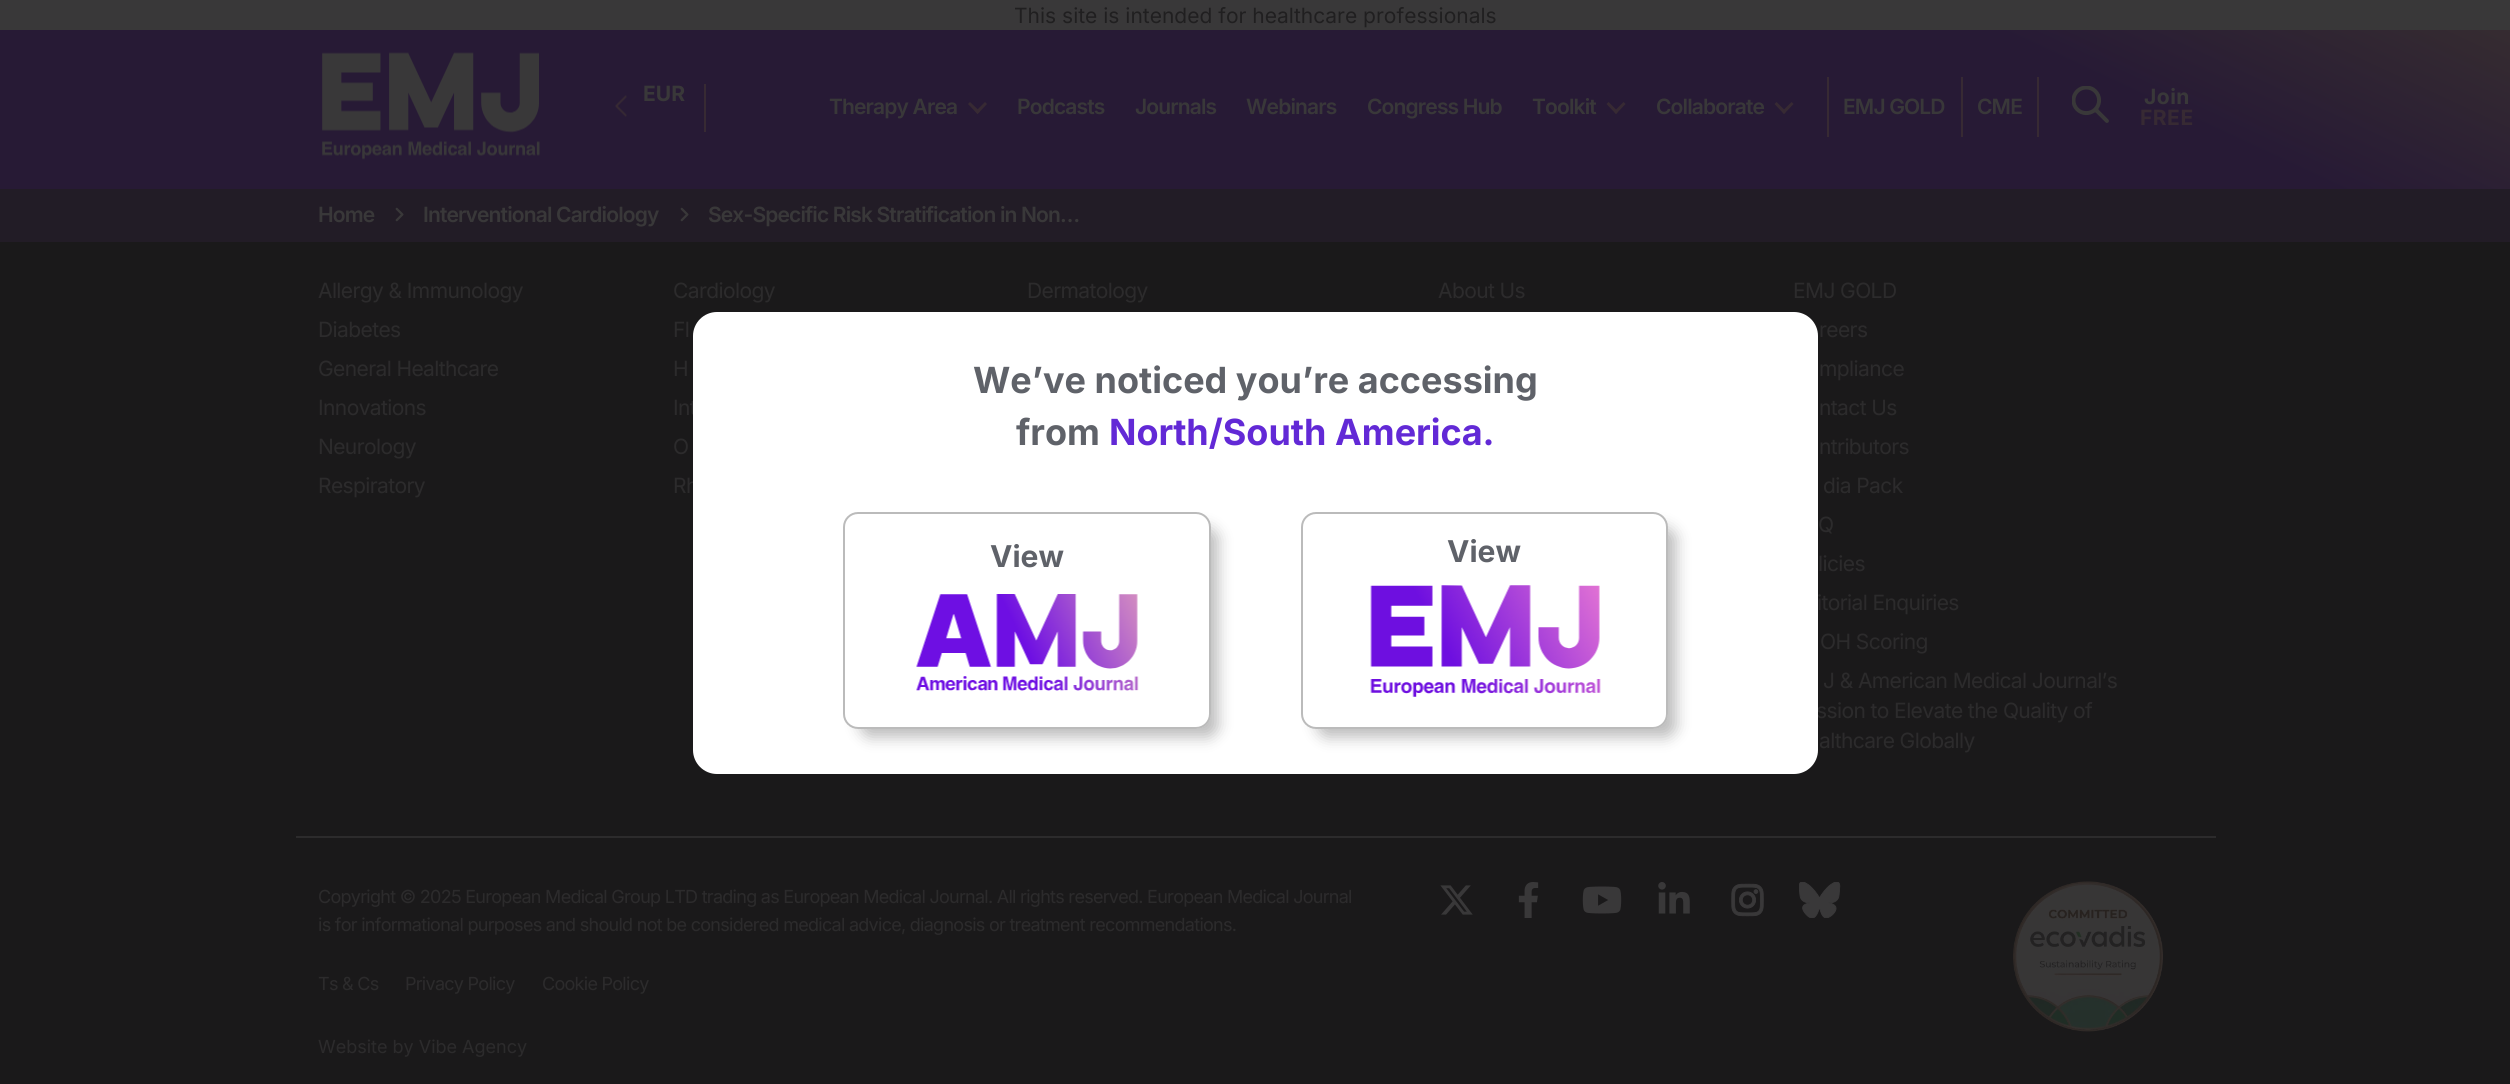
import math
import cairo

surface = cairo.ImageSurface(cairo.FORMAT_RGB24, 2510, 1084)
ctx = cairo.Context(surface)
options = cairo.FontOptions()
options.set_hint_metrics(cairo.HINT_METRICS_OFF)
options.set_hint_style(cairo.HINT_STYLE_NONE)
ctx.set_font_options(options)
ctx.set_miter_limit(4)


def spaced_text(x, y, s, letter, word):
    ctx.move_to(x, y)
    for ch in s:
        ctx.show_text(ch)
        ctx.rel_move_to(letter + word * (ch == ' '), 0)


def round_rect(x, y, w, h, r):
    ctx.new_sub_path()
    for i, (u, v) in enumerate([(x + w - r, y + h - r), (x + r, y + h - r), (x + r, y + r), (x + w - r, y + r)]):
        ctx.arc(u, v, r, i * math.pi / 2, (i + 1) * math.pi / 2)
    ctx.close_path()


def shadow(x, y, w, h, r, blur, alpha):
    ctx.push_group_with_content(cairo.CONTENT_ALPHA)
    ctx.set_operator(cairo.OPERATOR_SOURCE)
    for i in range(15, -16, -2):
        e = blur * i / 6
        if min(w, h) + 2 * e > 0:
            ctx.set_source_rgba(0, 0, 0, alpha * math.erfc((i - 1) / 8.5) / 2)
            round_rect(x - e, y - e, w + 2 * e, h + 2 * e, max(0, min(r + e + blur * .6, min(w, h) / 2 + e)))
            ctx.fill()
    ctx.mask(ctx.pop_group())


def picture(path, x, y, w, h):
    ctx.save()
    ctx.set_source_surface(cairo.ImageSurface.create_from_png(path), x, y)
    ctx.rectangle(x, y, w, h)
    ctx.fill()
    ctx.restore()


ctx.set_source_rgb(0.102, 0.098, 0.102)
ctx.paint()
ctx.set_source_rgb(0.224, 0.22, 0.224)
ctx.rectangle(0, 0, 2510, 30)
ctx.fill()
ctx.select_font_face("Inter")
ctx.set_font_size(21)
ctx.set_source_rgb(0.125, 0.122, 0.125)
ctx.move_to(1014, 23)
ctx.show_text("This site is intended for healthcare professionals")
gradient = cairo.LinearGradient(995, 653, 1516, -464)
gradient.add_color_stop_rgba(0.8, 0.153, 0.102, 0.208, 1)
gradient.add_color_stop_rgba(1, 0.216, 0.18, 0.188, 1)
ctx.set_source(gradient)
ctx.rectangle(0, 30, 2510, 159)
ctx.fill()
picture("img1.png", 322, 52, 218, 108)
ctx.set_source_rgb(0.216, 0.165, 0.2)
ctx.rectangle(704, 84, 2, 48)
ctx.fill()
picture("img2.png", 615, 95, 12, 22)
ctx.select_font_face("Inter", cairo.FONT_SLANT_NORMAL, cairo.FONT_WEIGHT_BOLD)
ctx.set_source_rgb(0.224, 0.22, 0.224)
ctx.move_to(643, 101)
ctx.show_text("EUR")
ctx.select_font_face("Inter SemiBold")
spaced_text(829, 114, "Therapy Area", -0.85, 0)
ctx.set_source_rgb(0.216, 0.165, 0.2)
ctx.new_path()
ctx.move_to(977.5, 114)
ctx.line_to(968, 104)
ctx.line_to(970, 102)
ctx.line_to(980, 111.5)
ctx.close_path()
ctx.fill()
ctx.new_path()
ctx.move_to(977.5, 114)
ctx.line_to(975.5, 111.5)
ctx.line_to(985, 102)
ctx.line_to(987, 104)
ctx.close_path()
ctx.fill()
ctx.set_source_rgb(0.224, 0.22, 0.224)
spaced_text(1017, 114, "Podcasts", -0.85, 0)
spaced_text(1135, 114, "Journals", -0.85, 0)
spaced_text(1246, 114, "Webinars", -0.85, 0)
spaced_text(1367, 114, "Congress Hub", -0.85, 0)
spaced_text(1532, 114, "Toolkit", -0.85, 0)
ctx.set_source_rgb(0.216, 0.165, 0.2)
ctx.new_path()
ctx.move_to(1616, 114)
ctx.line_to(1606.5, 104)
ctx.line_to(1608.5, 102)
ctx.line_to(1618, 111.5)
ctx.close_path()
ctx.fill()
ctx.new_path()
ctx.move_to(1616, 114)
ctx.line_to(1614, 111.5)
ctx.line_to(1623.5, 102)
ctx.line_to(1625.5, 104)
ctx.close_path()
ctx.fill()
ctx.set_source_rgb(0.224, 0.22, 0.224)
spaced_text(1656, 114, "Collaborate", -0.85, 0)
ctx.set_source_rgb(0.216, 0.165, 0.2)
ctx.new_path()
ctx.move_to(1784, 114)
ctx.line_to(1774.5, 104)
ctx.line_to(1776.5, 102)
ctx.line_to(1786, 111.5)
ctx.close_path()
ctx.fill()
ctx.new_path()
ctx.move_to(1784, 114)
ctx.line_to(1782, 111.5)
ctx.line_to(1791.5, 102)
ctx.line_to(1793.5, 104)
ctx.close_path()
ctx.fill()
ctx.rectangle(1961, 77, 2, 60)
ctx.fill()
ctx.rectangle(1827, 77, 2, 60)
ctx.fill()
ctx.set_source_rgb(0.224, 0.22, 0.224)
spaced_text(1843, 114, "EMJ GOLD", -0.85, 0)
ctx.set_source_rgb(0.216, 0.165, 0.2)
ctx.rectangle(2037, 77, 2, 60)
ctx.fill()
ctx.set_source_rgb(0.224, 0.22, 0.224)
spaced_text(1977, 114, "CME", -0.85, 0)
picture("img3.png", 2072, 86, 37, 37)
ctx.select_font_face("Inter", cairo.FONT_SLANT_NORMAL, cairo.FONT_WEIGHT_BOLD)
spaced_text(2144, 104, "Join", 0.5, 0)
ctx.set_source_rgb(0.216, 0.165, 0.2)
spaced_text(2140, 125, "FREE", 0.5, 0)
ctx.set_source_rgb(0.133, 0.11, 0.149)
ctx.rectangle(0, 189, 2510, 53)
ctx.fill()
ctx.select_font_face("Inter SemiBold")
ctx.set_source_rgb(0.224, 0.22, 0.224)
spaced_text(318, 222, "Home", -0.85, 0)
picture("img4.png", 395, 207, 9, 15)
spaced_text(423, 222, "Interventional Cardiology", -0.85, 0)
picture("img4.png", 680, 207, 9, 15)
spaced_text(708, 222, "Sex-Specific Risk Stratification in Non…", -0.85, 0)
ctx.select_font_face("Inter")
ctx.set_source_rgb(0.173, 0.169, 0.173)
spaced_text(318, 298, "Allergy & Immunology", -0.6, 0)
spaced_text(673, 298, "Cardiology", -0.6, 0)
spaced_text(1027, 298, "Dermatology", -0.6, 0)
spaced_text(318, 337, "Diabetes", -0.6, 0)
spaced_text(673, 337, "Fl", -0.6, 0)
spaced_text(318, 376, "General Healthcare", -0.6, 0)
spaced_text(673, 376, "H", -0.6, 0)
spaced_text(318, 415, "Innovations", -0.6, 0)
spaced_text(673, 415, "Int", -0.6, 0)
spaced_text(318, 454, "Neurology", -0.6, 0)
spaced_text(673, 454, "O", -0.6, 0)
spaced_text(318, 493, "Respiratory", -0.6, 0)
spaced_text(673, 493, "Rh", -0.6, 0)
spaced_text(1438, 298, "About Us", -0.6, 0)
spaced_text(1793, 298, "EMJ GOLD", -0.6, 0)
spaced_text(1819, 337, "reers", -0.6, 0)
spaced_text(1819, 376, "mpliance", -0.6, 0)
spaced_text(1819, 415, "ntact Us", -0.6, 0)
spaced_text(1819, 454, "ntributors", -0.6, 0)
spaced_text(1823, 493, "dia Pack", -0.6, 0)
spaced_text(1818, 532, "Q", -0.6, 0)
spaced_text(1818, 571, "licies", -0.6, 0)
spaced_text(1817, 610, "itorial Enquiries", -0.6, 0)
spaced_text(1820, 649, "OH Scoring", -0.6, 0)
spaced_text(1823, 688, "J & American Medical Journal’s", -0.6, 0)
spaced_text(1816, 718, "ssion to Elevate the Quality of", -0.6, 0)
spaced_text(1819, 748, "althcare Globally", -0.6, 0)
ctx.rectangle(296, 836, 1920, 2)
ctx.fill()
ctx.set_font_size(18)
spaced_text(318, 903, "Copyright © 2025 European Medical Group LTD trading as European Medical Journal. All rights reserved. European Medical Journal", -0.72, 0)
spaced_text(318, 931, "is for informational purposes and should not be considered medical advice, diagnosis or treatment recommendations.", -0.72, 0)
spaced_text(318, 990, "Ts & Cs", -0.72, 0)
spaced_text(405, 990, "Privacy Policy", -0.72, 0)
spaced_text(542, 990, "Cookie Policy", -0.72, 0)
ctx.move_to(318, 1053)
ctx.show_text("Website by Vibe Agency")
picture("img5.png", 1440, 885, 33, 30)
picture("img6.png", 1518, 882, 21, 36)
picture("img7.png", 1582, 886, 40, 28)
picture("img8.png", 1658, 882, 32, 32)
picture("img9.png", 1731, 883, 33, 34)
picture("img10.png", 1799, 882, 42, 36)
picture("img11.png", 2013, 881, 150, 151)
ctx.set_source_rgb(1, 1, 1)
round_rect(693, 312, 1125, 462, 24)
ctx.fill()
ctx.select_font_face("Inter", cairo.FONT_SLANT_NORMAL, cairo.FONT_WEIGHT_BOLD)
ctx.set_font_size(36)
ctx.set_source_rgb(0.373, 0.384, 0.412)
ctx.move_to(973, 393)
ctx.show_text("We’ve noticed you’re accessing")
ctx.move_to(1016, 445)
ctx.show_text("from")
ctx.set_source_rgb(0.384, 0.161, 0.839)
ctx.move_to(1109, 445)
ctx.show_text("North/South America.")
ctx.set_source_rgb(0.114, 0.11, 0.114)
shadow(860, 528, 358, 209, 11, 7.5, 0.3)
ctx.set_source_rgb(1, 1, 1)
round_rect(843, 512, 368, 217, 15)
ctx.fill()
round_rect(844, 513, 366, 215, 14)
ctx.set_source_rgba(0.114, 0.11, 0.114, 0.3)
ctx.stroke()
ctx.set_font_size(30)
ctx.set_source_rgb(0.373, 0.384, 0.412)
ctx.move_to(990, 567)
ctx.show_text("View")
picture("img12.png", 916, 594, 223, 97)
ctx.set_source_rgb(0.114, 0.11, 0.114)
shadow(1317, 528, 359, 209, 11, 7.5, 0.3)
ctx.set_source_rgb(1, 1, 1)
round_rect(1301, 512, 367, 217, 15)
ctx.fill()
round_rect(1302, 513, 365, 215, 14)
ctx.set_source_rgba(0.114, 0.11, 0.114, 0.3)
ctx.stroke()
ctx.set_source_rgb(0.373, 0.384, 0.412)
ctx.move_to(1447, 562)
ctx.show_text("View")
picture("img13.png", 1370, 585, 231, 112)
surface.write_to_png("page.png")
